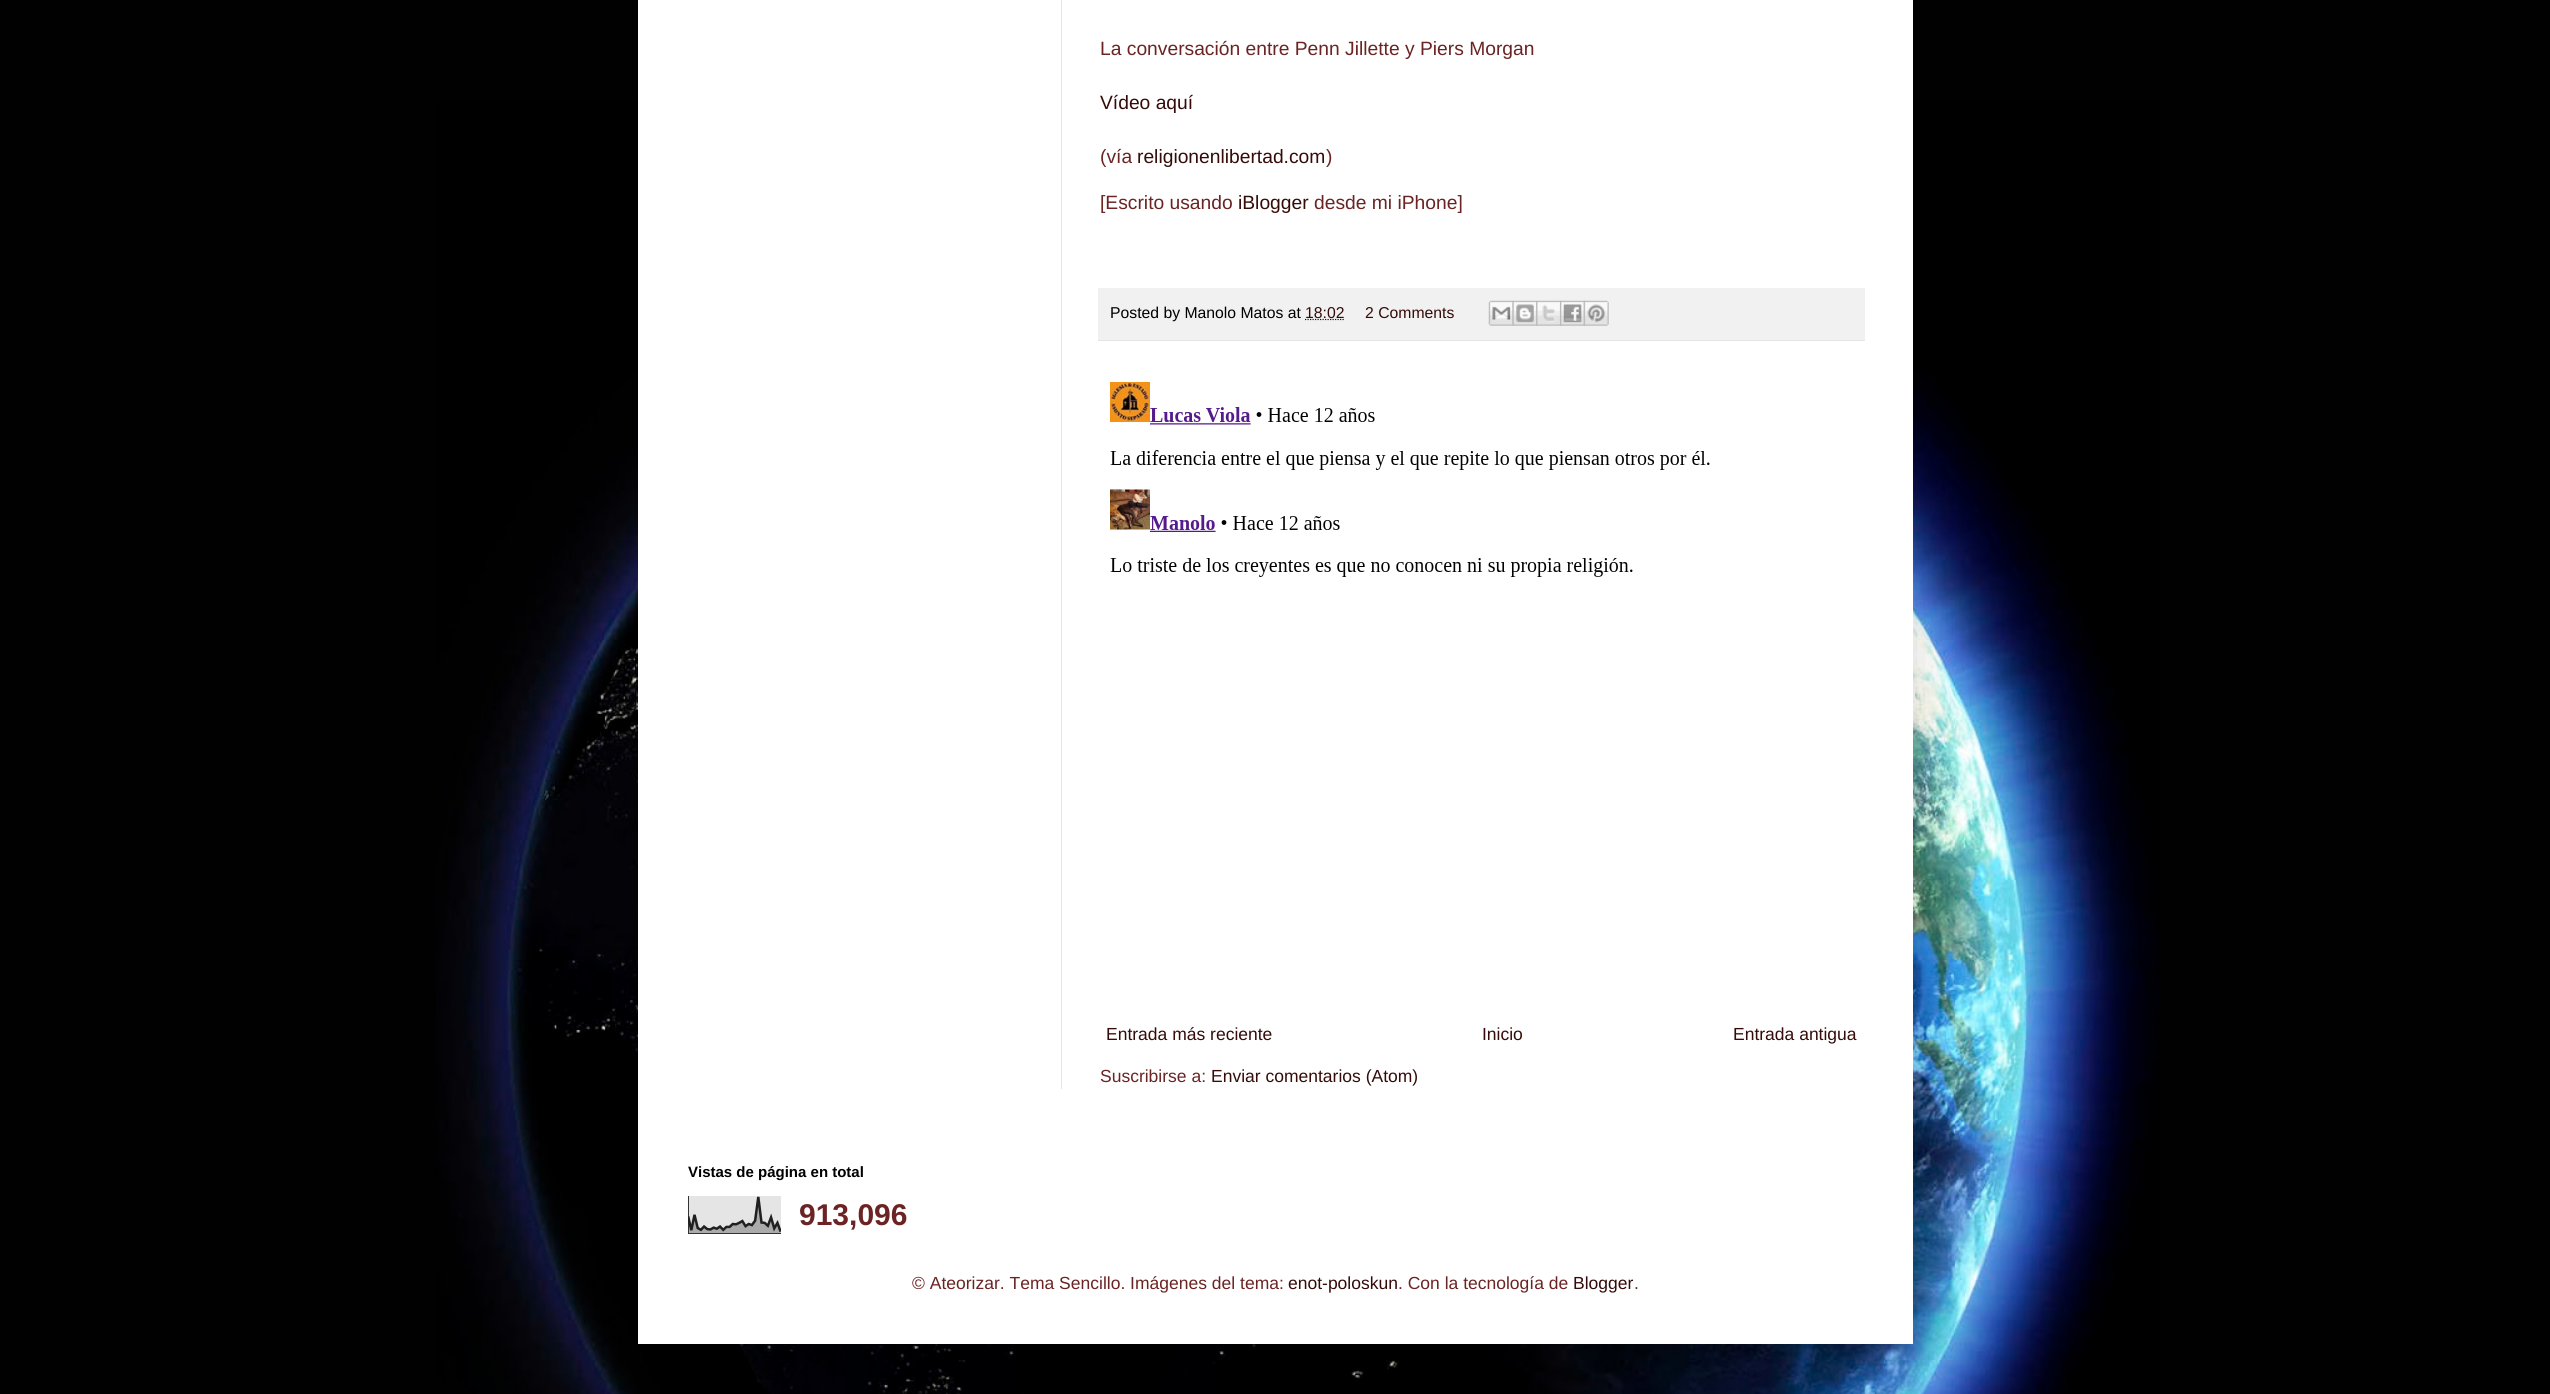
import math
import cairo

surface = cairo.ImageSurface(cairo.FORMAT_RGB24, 2550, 1394)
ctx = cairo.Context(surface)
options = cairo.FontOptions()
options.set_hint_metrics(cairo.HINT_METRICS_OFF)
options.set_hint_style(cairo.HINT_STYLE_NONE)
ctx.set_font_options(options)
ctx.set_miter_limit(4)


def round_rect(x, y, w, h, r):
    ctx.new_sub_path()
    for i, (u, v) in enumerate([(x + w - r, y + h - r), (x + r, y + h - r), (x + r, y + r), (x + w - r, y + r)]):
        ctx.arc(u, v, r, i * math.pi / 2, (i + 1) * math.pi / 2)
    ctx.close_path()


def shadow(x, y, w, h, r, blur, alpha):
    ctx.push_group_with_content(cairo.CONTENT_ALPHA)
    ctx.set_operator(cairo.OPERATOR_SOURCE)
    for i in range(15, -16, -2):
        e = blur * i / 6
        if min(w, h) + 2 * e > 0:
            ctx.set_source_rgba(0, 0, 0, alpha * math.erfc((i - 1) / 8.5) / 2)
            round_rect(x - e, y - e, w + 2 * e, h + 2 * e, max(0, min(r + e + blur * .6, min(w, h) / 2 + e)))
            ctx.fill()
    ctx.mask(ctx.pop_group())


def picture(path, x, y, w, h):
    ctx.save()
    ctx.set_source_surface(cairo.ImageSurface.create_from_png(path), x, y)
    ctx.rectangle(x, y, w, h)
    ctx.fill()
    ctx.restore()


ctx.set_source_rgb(0.004, 0.004, 0.004)
ctx.paint()
picture("img1.png", 436, 101, 1724, 1293)
ctx.set_source_rgb(0, 0, 0)
shadow(638, -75, 1275, 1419, 0, 25, 0.15)
ctx.set_source_rgb(1, 1, 1)
ctx.rectangle(638, 0, 1275, 1344)
ctx.fill()
ctx.set_source_rgb(0.898, 0.898, 0.898)
ctx.rectangle(1061, 0, 1, 1089)
ctx.fill()
ctx.select_font_face("Liberation Sans")
ctx.set_font_size(19.25)
ctx.set_source_rgb(0.42, 0.137, 0.137)
ctx.move_to(1100, 55)
ctx.show_text("La conversación entre Penn Jillette y Piers Morgan")
ctx.set_source_rgb(0.204, 0.043, 0.035)
ctx.move_to(1100, 109)
ctx.show_text("Vídeo aquí")
ctx.set_source_rgb(0.42, 0.137, 0.137)
ctx.move_to(1100, 163)
ctx.show_text("(vía")
ctx.set_source_rgb(0.204, 0.043, 0.035)
ctx.move_to(1137, 163)
ctx.show_text("religionenlibertad.com")
ctx.set_source_rgb(0.42, 0.137, 0.137)
ctx.move_to(1326, 163)
ctx.show_text(")")
ctx.move_to(1100, 209)
ctx.show_text("[Escrito usando")
ctx.set_source_rgb(0.204, 0.043, 0.035)
ctx.move_to(1238, 209)
ctx.show_text("iBlogger")
ctx.set_source_rgb(0.42, 0.137, 0.137)
ctx.move_to(1314, 209)
ctx.show_text("desde mi iPhone]")
ctx.set_source_rgb(0.945, 0.945, 0.945)
ctx.rectangle(1098, 288, 767, 52)
ctx.fill()
ctx.set_source_rgb(0.898, 0.898, 0.898)
ctx.rectangle(1098, 340, 767, 1)
ctx.fill()
ctx.set_font_size(15.75)
ctx.set_source_rgb(0, 0, 0)
ctx.move_to(1110, 318)
ctx.show_text("Posted by Manolo Matos at")
ctx.new_path()
ctx.move_to(1305, 319.5)
ctx.line_to(1344.5, 319.5)
ctx.set_source_rgb(0.204, 0.043, 0.035)
ctx.set_line_width(1.2)
ctx.set_dash([1.25, 1.25])
ctx.stroke()
ctx.move_to(1305, 318)
ctx.show_text("18:02")
ctx.move_to(1365, 318)
ctx.show_text("2 Comments")
picture("img2.png", 1488, 300, 26, 26)
picture("img3.png", 1512, 300, 26, 26)
picture("img4.png", 1536, 300, 26, 26)
picture("img5.png", 1560, 300, 25, 26)
picture("img6.png", 1583, 300, 26, 26)
picture("img7.png", 1110, 382, 600, 195)
ctx.set_font_size(17.5)
ctx.move_to(1106, 1040)
ctx.show_text("Entrada más reciente")
ctx.move_to(1482, 1040)
ctx.show_text("Inicio")
ctx.move_to(1733, 1040)
ctx.show_text("Entrada antigua")
ctx.set_source_rgb(0.42, 0.137, 0.137)
ctx.move_to(1100, 1082)
ctx.show_text("Suscribirse a:")
ctx.set_source_rgb(0.204, 0.043, 0.035)
ctx.move_to(1211, 1082)
ctx.show_text("Enviar comentarios (Atom)")
ctx.select_font_face("Liberation Sans", cairo.FONT_SLANT_NORMAL, cairo.FONT_WEIGHT_BOLD)
ctx.set_font_size(15)
ctx.set_source_rgb(0, 0, 0)
ctx.move_to(688, 1177)
ctx.show_text("Vistas de página en total")
picture("img8.png", 688, 1196, 93, 38)
ctx.set_font_size(30)
ctx.set_source_rgb(0.42, 0.137, 0.137)
ctx.move_to(799, 1225)
ctx.show_text("913,096")
ctx.select_font_face("Liberation Sans")
ctx.set_font_size(17.5)
ctx.move_to(912, 1289)
ctx.show_text("© Ateorizar. Tema Sencillo. Imágenes del tema:")
ctx.set_source_rgb(0.204, 0.043, 0.035)
ctx.move_to(1288, 1289)
ctx.show_text("enot-poloskun")
ctx.set_source_rgb(0.42, 0.137, 0.137)
ctx.move_to(1398, 1289)
ctx.show_text(". Con la tecnología de")
ctx.set_source_rgb(0.204, 0.043, 0.035)
ctx.move_to(1573, 1289)
ctx.show_text("Blogger")
ctx.set_source_rgb(0.42, 0.137, 0.137)
ctx.move_to(1634, 1289)
ctx.show_text(".")
surface.write_to_png("page.png")
